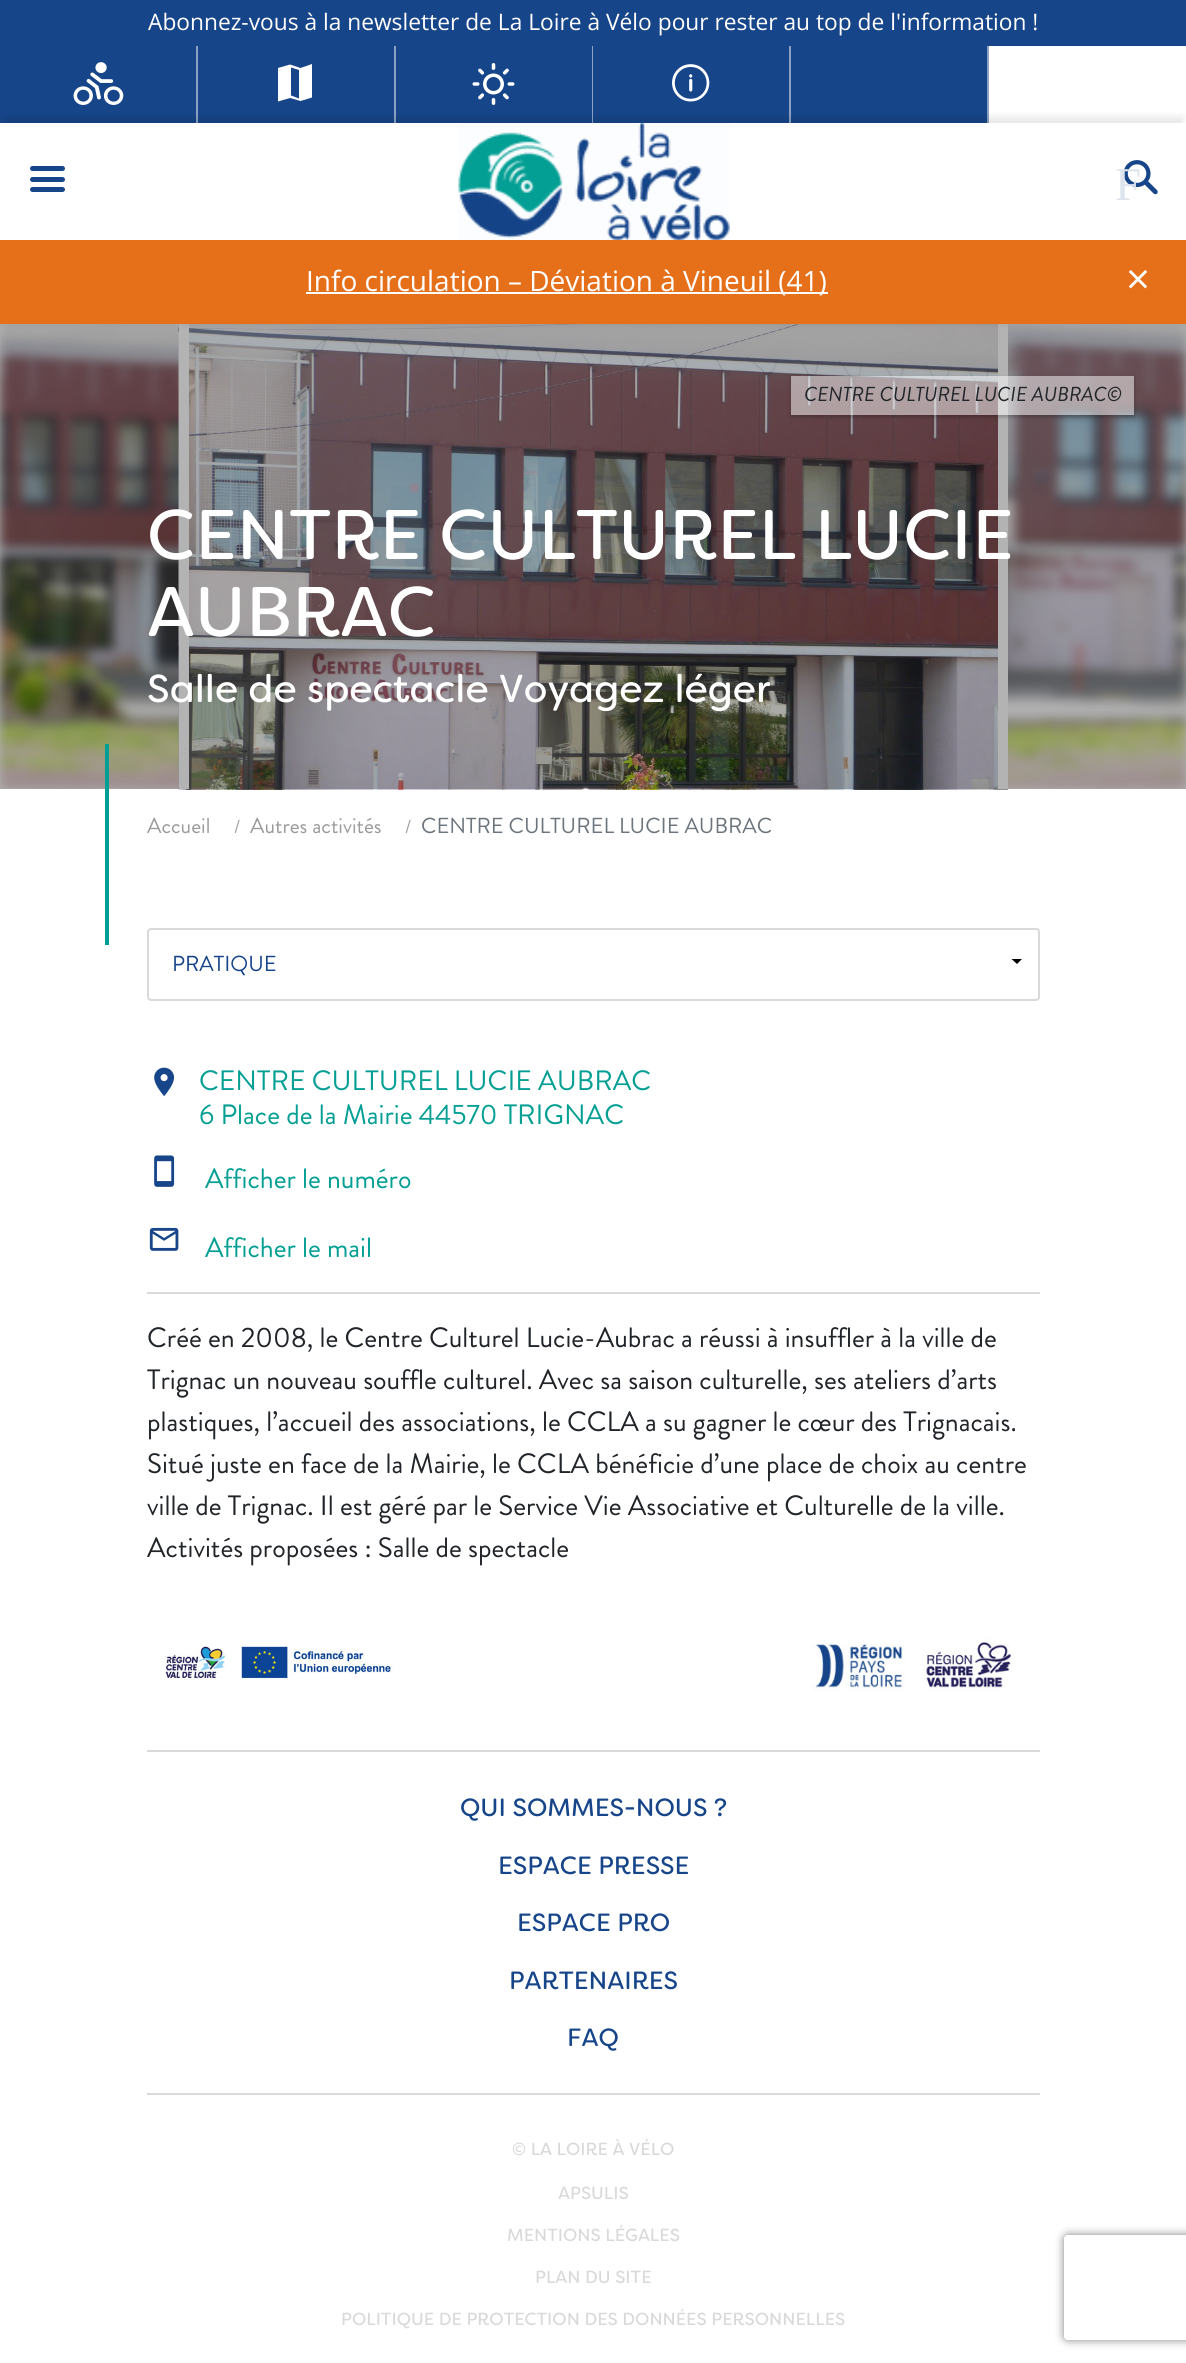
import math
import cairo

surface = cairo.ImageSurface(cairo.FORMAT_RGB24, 1186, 2363)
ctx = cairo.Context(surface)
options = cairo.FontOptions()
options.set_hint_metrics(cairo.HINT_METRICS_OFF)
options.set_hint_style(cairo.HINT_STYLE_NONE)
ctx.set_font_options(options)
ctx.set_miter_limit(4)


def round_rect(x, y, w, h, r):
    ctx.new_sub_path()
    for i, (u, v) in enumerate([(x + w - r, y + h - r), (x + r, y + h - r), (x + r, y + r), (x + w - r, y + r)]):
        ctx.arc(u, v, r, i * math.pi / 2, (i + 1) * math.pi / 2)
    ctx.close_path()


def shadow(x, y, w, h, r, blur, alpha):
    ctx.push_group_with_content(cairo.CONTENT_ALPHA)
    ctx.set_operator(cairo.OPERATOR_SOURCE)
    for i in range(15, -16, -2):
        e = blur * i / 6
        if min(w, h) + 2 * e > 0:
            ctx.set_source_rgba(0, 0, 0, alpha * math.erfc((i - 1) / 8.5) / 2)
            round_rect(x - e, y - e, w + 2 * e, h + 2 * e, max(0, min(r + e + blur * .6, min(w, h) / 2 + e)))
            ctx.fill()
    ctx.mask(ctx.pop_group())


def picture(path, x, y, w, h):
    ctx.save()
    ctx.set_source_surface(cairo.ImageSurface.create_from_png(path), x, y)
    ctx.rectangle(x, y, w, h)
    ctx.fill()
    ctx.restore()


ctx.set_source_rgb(1, 1, 1)
ctx.paint()
ctx.set_source_rgb(0.702, 0.702, 0.702)
ctx.rectangle(0, 324, 1186, 465)
ctx.fill()
picture("img6.png", 0, 324, 1186, 465)
picture("img7.png", 178, 324, 830, 466)
ctx.rectangle(998, 324, 10, 465)
ctx.fill()
ctx.rectangle(179, 324, 10, 465)
ctx.fill()
ctx.set_source_rgb(0, 0, 0)
shadow(0, 2, 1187, 324, 0, 2, 0.05)
ctx.set_source_rgb(1, 1, 1)
ctx.rectangle(0, 46, 1186, 194)
ctx.fill()
ctx.set_source_rgb(0.09, 0.271, 0.537)
ctx.rectangle(0, 0, 1186, 46)
ctx.fill()
ctx.select_font_face("Open Sans")
ctx.set_font_size(22.75)
ctx.set_source_rgb(1, 1, 1)
ctx.move_to(148, 30)
ctx.show_text("Abonnez-vous à la newsletter de La Loire à Vélo pour rester au top de l'information !")
ctx.set_source_rgb(0.09, 0.271, 0.537)
ctx.rectangle(0, 46, 196, 77)
ctx.fill()
ctx.set_source_rgb(0.545, 0.635, 0.769)
ctx.rectangle(196, 46, 2, 77)
ctx.fill()
picture("img1.png", 73, 62, 51, 43)
ctx.set_source_rgb(0.09, 0.271, 0.537)
ctx.rectangle(198, 46, 196, 77)
ctx.fill()
ctx.set_source_rgb(0.545, 0.635, 0.769)
ctx.rectangle(394, 46, 2, 77)
ctx.fill()
ctx.set_source_rgb(1, 1, 1)
ctx.new_path()
ctx.move_to(312, 64)
ctx.line_to(300.5, 68)
ctx.line_to(290, 64.5)
ctx.line_to(278, 68)
ctx.line_to(278, 101.5)
ctx.line_to(290, 98)
ctx.line_to(300.5, 101)
ctx.line_to(312, 97.5)
ctx.close_path()
ctx.move_to(291, 67.5)
ctx.line_to(299, 70)
ctx.line_to(299, 98.5)
ctx.line_to(291, 95.5)
ctx.close_path()
ctx.fill()
ctx.set_source_rgb(0.09, 0.271, 0.537)
ctx.rectangle(396, 46, 196, 77)
ctx.fill()
ctx.set_source_rgb(0.545, 0.635, 0.769)
ctx.rectangle(592, 46, 1, 77)
ctx.fill()
picture("img2.png", 472, 63, 43, 42)
ctx.set_source_rgb(0.09, 0.271, 0.537)
ctx.rectangle(593, 46, 196, 77)
ctx.fill()
ctx.set_source_rgb(0.545, 0.635, 0.769)
ctx.rectangle(789, 46, 2, 77)
ctx.fill()
picture("img3.png", 672, 64, 38, 38)
ctx.set_source_rgb(0.09, 0.271, 0.537)
ctx.rectangle(791, 46, 196, 77)
ctx.fill()
ctx.set_source_rgb(0.545, 0.635, 0.769)
ctx.rectangle(987, 46, 2, 77)
ctx.fill()
ctx.set_source_rgb(0.902, 0.439, 0.102)
ctx.rectangle(0, 240, 1186, 84)
ctx.fill()
ctx.save()
ctx.rectangle(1, 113, 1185, 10)
ctx.clip()
ctx.set_source_rgb(0, 0, 0)
shadow(4, 117, 1179, 111, 0, 4.5, 0.1)
ctx.restore()
ctx.set_source_rgb(0.09, 0.271, 0.537)
round_rect(30, 166, 35, 5, 2.5)
ctx.fill()
round_rect(30, 177, 35, 5, 2.5)
ctx.fill()
round_rect(30, 187, 35, 5, 2.5)
ctx.fill()
picture("img4.png", 458, 123, 272, 117)
picture("img5.png", 1123, 160, 35, 35)
ctx.select_font_face("Liberation Serif")
ctx.set_font_size(47)
ctx.set_source_rgb(0.871, 0.894, 0.933)
ctx.move_to(1115, 200)
ctx.show_text("F")
ctx.set_source_rgb(1, 1, 1)
ctx.rectangle(306, 292, 522, 2)
ctx.fill()
ctx.select_font_face("Open Sans")
ctx.set_font_size(28)
ctx.move_to(306, 291)
ctx.show_text("Info circulation – Déviation à Vineuil (41)")
ctx.set_font_size(42)
ctx.move_to(1126, 294)
ctx.show_text("×")
ctx.save()
ctx.set_fill_rule(cairo.FILL_RULE_EVEN_ODD)
ctx.new_path()
ctx.move_to(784, 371)
ctx.line_to(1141, 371)
ctx.line_to(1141, 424)
ctx.line_to(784, 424)
ctx.close_path()
ctx.move_to(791, 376)
ctx.line_to(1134, 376)
ctx.line_to(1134, 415)
ctx.line_to(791, 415)
ctx.close_path()
ctx.clip()
ctx.set_source_rgb(0, 0, 0)
shadow(791, 378, 343, 39, 0, 2, 0.25)
ctx.restore()
ctx.set_source_rgba(1, 1, 1, 0.5)
ctx.rectangle(791, 376, 343, 39)
ctx.fill()
ctx.select_font_face("Brandon Grotesque", cairo.FONT_SLANT_ITALIC)
ctx.set_font_size(20.25)
ctx.set_source_rgb(0.129, 0.145, 0.161)
ctx.move_to(804, 401)
ctx.show_text("CENTRE CULTUREL LUCIE AUBRAC©")
ctx.select_font_face("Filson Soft")
ctx.set_font_size(70)
ctx.set_source_rgb(1, 1, 1)
ctx.move_to(147, 559)
ctx.show_text("CENTRE CULTUREL LUCIE")
ctx.move_to(147, 636)
ctx.show_text("AUBRAC")
ctx.set_font_size(38.9)
ctx.move_to(147, 702)
ctx.show_text("Salle de spectacle Voyagez léger")
ctx.set_source_rgb(0.016, 0.624, 0.58)
ctx.rectangle(105, 744, 4, 201)
ctx.fill()
ctx.select_font_face("Brandon Grotesque")
ctx.set_font_size(21.75)
ctx.set_source_rgb(0.608, 0.608, 0.608)
ctx.move_to(147, 833)
ctx.show_text("Accueil")
ctx.set_font_size(19)
ctx.move_to(234, 833)
ctx.show_text("/")
ctx.set_font_size(21.75)
ctx.move_to(250, 833)
ctx.show_text("Autres activités")
ctx.set_font_size(19)
ctx.move_to(405, 833)
ctx.show_text("/")
ctx.set_font_size(21.75)
ctx.set_source_rgb(0.424, 0.459, 0.49)
ctx.move_to(421, 833)
ctx.show_text("CENTRE CULTUREL LUCIE AUBRAC")
round_rect(148, 929, 891, 71, 3)
ctx.set_source_rgb(0.851, 0.851, 0.851)
ctx.stroke()
ctx.set_source_rgb(0.09, 0.271, 0.537)
ctx.move_to(172, 971)
ctx.show_text("PRATIQUE")
ctx.set_source_rgb(0, 0, 0)
ctx.new_path()
ctx.move_to(1011.5, 959)
ctx.line_to(1022, 959)
ctx.line_to(1017, 964)
ctx.close_path()
ctx.fill()
ctx.set_source_rgb(0.851, 0.851, 0.851)
ctx.rectangle(147, 1292, 893, 2)
ctx.fill()
picture("img8.png", 154, 1067, 21, 29)
ctx.set_font_size(28)
ctx.set_source_rgb(0.016, 0.624, 0.58)
ctx.move_to(199, 1090)
ctx.show_text("CENTRE CULTUREL LUCIE AUBRAC")
ctx.move_to(199, 1124)
ctx.show_text("6 Place de la Mairie 44570 TRIGNAC")
picture("img9.png", 154, 1155, 21, 32)
ctx.move_to(205, 1188)
ctx.show_text("Afficher le numéro")
picture("img10.png", 149, 1227, 30, 24)
ctx.move_to(205, 1257)
ctx.show_text("Afficher le mail")
ctx.set_source_rgb(0.129, 0.145, 0.161)
ctx.move_to(147, 1347)
ctx.show_text("Créé en 2008, le Centre Culturel Lucie-Aubrac a réussi à insuffler à la ville de")
ctx.move_to(147, 1389)
ctx.show_text("Trignac un nouveau souffle culturel. Avec sa saison culturelle, ses ateliers d’arts")
ctx.move_to(147, 1431)
ctx.show_text("plastiques, l’accueil des associations, le CCLA a su gagner le cœur des Trignacais.")
ctx.move_to(147, 1473)
ctx.show_text("Situé juste en face de la Mairie, le CCLA bénéficie d’une place de choix au centre")
ctx.move_to(147, 1515)
ctx.show_text("ville de Trignac. Il est géré par le Service Vie Associative et Culturelle de la ville.")
ctx.move_to(147, 1557)
ctx.show_text("Activités proposées : Salle de spectacle")
picture("img11.png", 165, 1643, 230, 37)
picture("img12.png", 812, 1636, 200, 56)
ctx.set_source_rgb(0.851, 0.851, 0.851)
ctx.rectangle(147, 1750, 893, 2)
ctx.fill()
ctx.select_font_face("Filson Soft")
ctx.set_font_size(24.9)
ctx.set_source_rgb(0.09, 0.271, 0.537)
ctx.move_to(460, 1816)
ctx.show_text("QUI SOMMES-NOUS ?")
ctx.move_to(498, 1874)
ctx.show_text("ESPACE PRESSE")
ctx.move_to(517, 1931)
ctx.show_text("ESPACE PRO")
ctx.move_to(509, 1989)
ctx.show_text("PARTENAIRES")
ctx.move_to(567, 2046)
ctx.show_text("FAQ")
ctx.set_source_rgb(0.851, 0.851, 0.851)
ctx.rectangle(147, 2093, 893, 2)
ctx.fill()
ctx.set_font_size(17.5)
ctx.move_to(512, 2155)
ctx.show_text("© LA LOIRE À VÉLO")
ctx.move_to(558, 2199)
ctx.show_text("APSULIS")
ctx.move_to(507, 2241)
ctx.show_text("MENTIONS LÉGALES")
ctx.move_to(535, 2283)
ctx.show_text("PLAN DU SITE")
ctx.move_to(341, 2325)
ctx.show_text("POLITIQUE DE PROTECTION DES DONNÉES PERSONNELLES")
ctx.save()
ctx.set_fill_rule(cairo.FILL_RULE_EVEN_ODD)
ctx.new_path()
ctx.move_to(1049, 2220)
ctx.line_to(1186, 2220)
ctx.line_to(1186, 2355)
ctx.line_to(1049, 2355)
ctx.close_path()
ctx.move_to(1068, 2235)
ctx.line_to(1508, 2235)
ctx.curve_to(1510, 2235, 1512, 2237, 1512, 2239)
ctx.line_to(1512, 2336)
ctx.curve_to(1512, 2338, 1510, 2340, 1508, 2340)
ctx.line_to(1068, 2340)
ctx.curve_to(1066, 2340, 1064, 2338, 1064, 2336)
ctx.line_to(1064, 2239)
ctx.curve_to(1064, 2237, 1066, 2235, 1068, 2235)
ctx.close_path()
ctx.clip()
ctx.set_source_rgb(0.502, 0.502, 0.502)
shadow(1064, 2235, 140, 105, 4, 4.5, 1)
ctx.restore()
surface.write_to_png("page.png")
